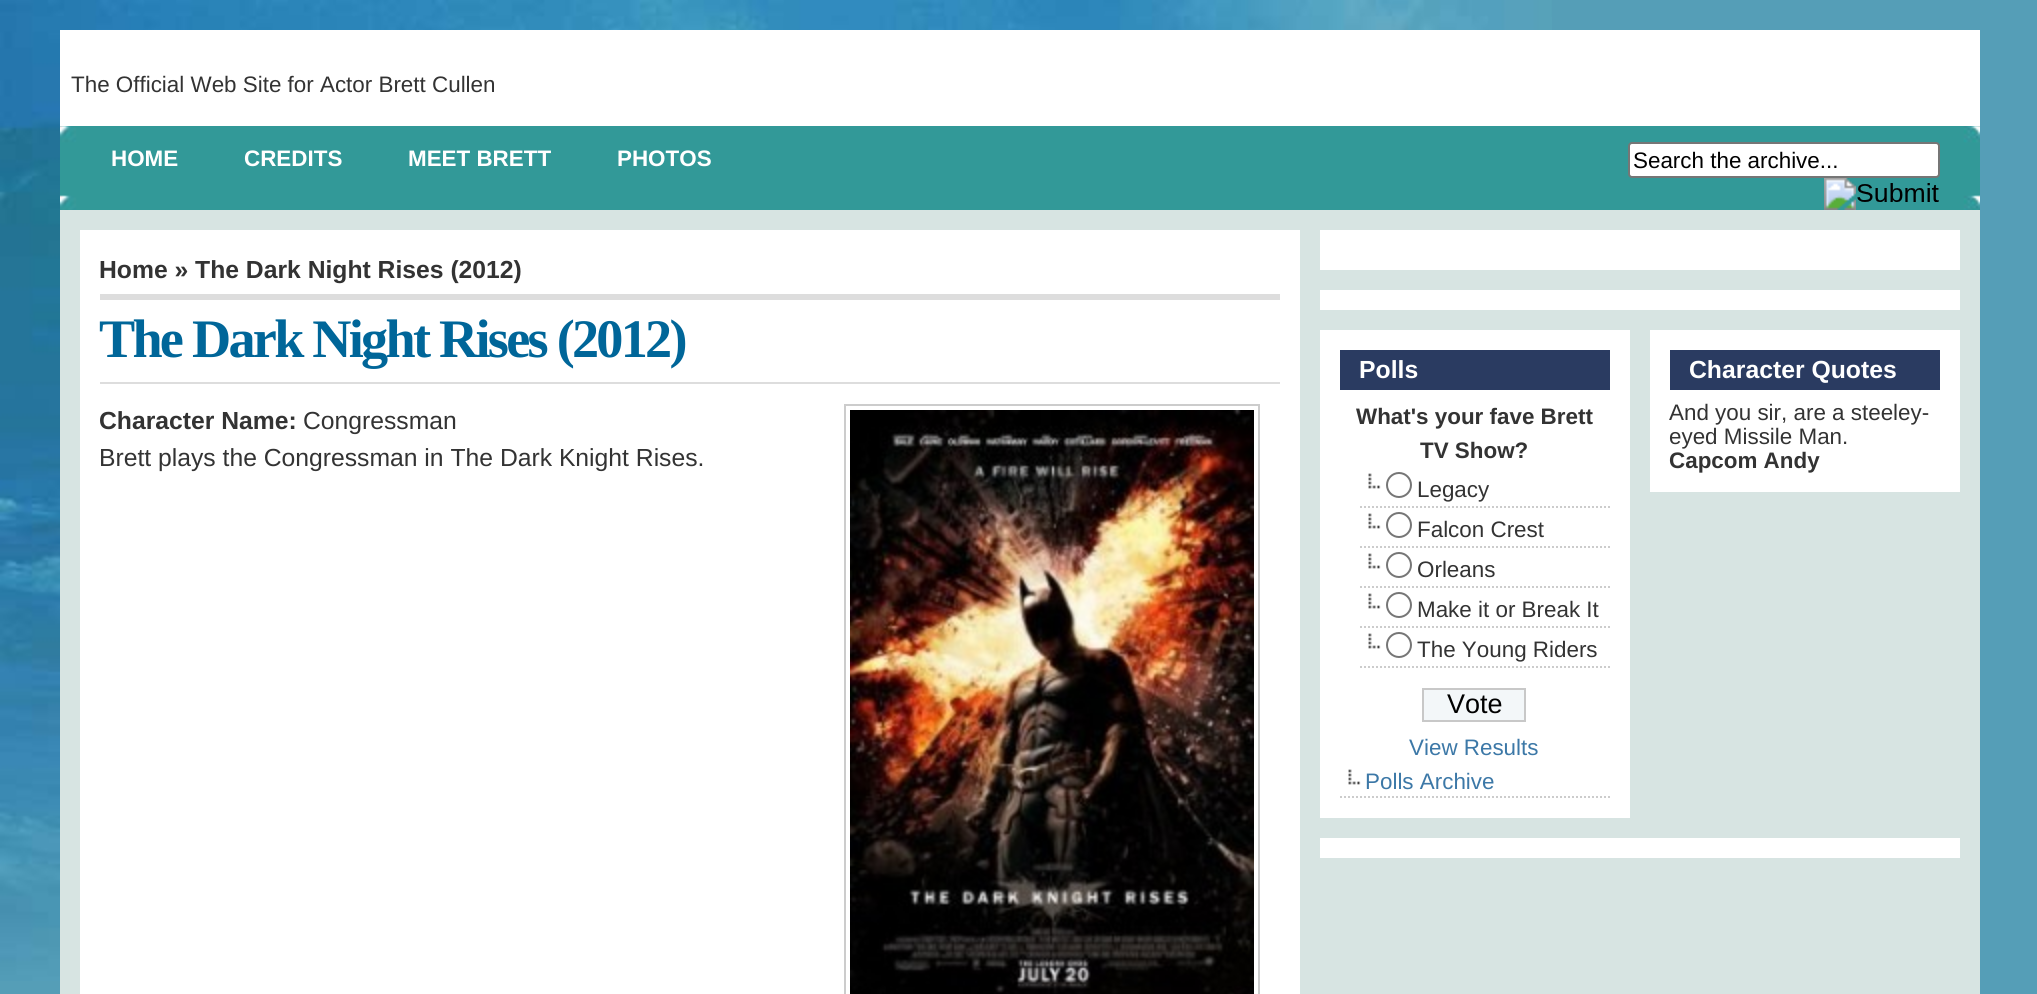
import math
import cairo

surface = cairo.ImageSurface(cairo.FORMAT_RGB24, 2037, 994)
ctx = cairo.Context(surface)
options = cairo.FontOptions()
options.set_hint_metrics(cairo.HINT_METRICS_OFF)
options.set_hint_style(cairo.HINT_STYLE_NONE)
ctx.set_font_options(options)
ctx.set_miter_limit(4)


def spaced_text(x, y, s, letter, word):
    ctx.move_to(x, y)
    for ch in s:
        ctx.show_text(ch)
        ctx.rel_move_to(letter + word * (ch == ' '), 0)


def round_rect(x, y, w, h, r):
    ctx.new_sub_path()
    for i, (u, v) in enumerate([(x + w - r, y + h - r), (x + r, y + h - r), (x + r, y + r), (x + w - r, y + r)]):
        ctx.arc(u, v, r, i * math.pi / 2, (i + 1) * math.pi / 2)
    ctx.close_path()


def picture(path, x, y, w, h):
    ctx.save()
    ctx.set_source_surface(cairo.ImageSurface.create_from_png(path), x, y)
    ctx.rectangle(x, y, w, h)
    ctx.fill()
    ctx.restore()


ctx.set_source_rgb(0.333, 0.62, 0.718)
ctx.paint()
picture("img1.png", 0, 0, 1552, 981)
ctx.set_source_rgb(1, 1, 1)
ctx.rectangle(60, 30, 1920, 96)
ctx.fill()
ctx.select_font_face("Liberation Sans")
ctx.set_font_size(22.4)
ctx.set_source_rgb(0.2, 0.2, 0.2)
ctx.move_to(71, 92)
ctx.show_text("The Official Web Site for Actor Brett Cullen")
picture("img2.png", 60, 126, 1920, 84)
ctx.select_font_face("Liberation Sans", cairo.FONT_SLANT_NORMAL, cairo.FONT_WEIGHT_BOLD)
ctx.set_source_rgb(1, 1, 1)
ctx.move_to(111, 166)
ctx.show_text("HOME")
ctx.move_to(244, 166)
ctx.show_text("CREDITS")
ctx.move_to(408, 166)
ctx.show_text("MEET BRETT")
ctx.move_to(617, 166)
ctx.show_text("PHOTOS")
round_rect(1629, 143, 310, 34, 3)
ctx.fill_preserve()
ctx.set_source_rgb(0.463, 0.463, 0.463)
ctx.stroke()
ctx.select_font_face("Liberation Sans")
ctx.set_source_rgb(0, 0, 0)
ctx.move_to(1633, 168)
ctx.show_text("Search the archive...")
picture("img3.png", 1824, 178, 115, 32)
ctx.set_source_rgb(0.843, 0.894, 0.886)
ctx.rectangle(60, 210, 1920, 784)
ctx.fill()
ctx.set_source_rgb(1, 1, 1)
ctx.rectangle(80, 230, 1220, 764)
ctx.fill()
ctx.select_font_face("Liberation Sans", cairo.FONT_SLANT_NORMAL, cairo.FONT_WEIGHT_BOLD)
ctx.set_font_size(24.7)
ctx.set_source_rgb(0.2, 0.2, 0.2)
ctx.move_to(99, 278)
ctx.show_text("Home » The Dark Night Rises (2012)")
ctx.set_source_rgb(0.867, 0.867, 0.867)
ctx.rectangle(100, 294, 1180, 6)
ctx.fill()
ctx.rectangle(100, 382, 1180, 2)
ctx.fill()
ctx.select_font_face("Liberation Serif", cairo.FONT_SLANT_NORMAL, cairo.FONT_WEIGHT_BOLD)
ctx.set_font_size(54.25)
ctx.set_source_rgb(0, 0.4, 0.6)
spaced_text(99, 357, "The Dark Night Rises (2012)", -2.75, 0)
ctx.select_font_face("Liberation Sans", cairo.FONT_SLANT_NORMAL, cairo.FONT_WEIGHT_BOLD)
ctx.set_font_size(24.7)
ctx.set_source_rgb(0.2, 0.2, 0.2)
ctx.move_to(99, 429)
ctx.show_text("Character Name:")
ctx.select_font_face("Liberation Sans")
ctx.move_to(303, 429)
ctx.show_text("Congressman")
ctx.rectangle(845, 405, 414, 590)
ctx.set_source_rgb(0.8, 0.8, 0.8)
ctx.stroke()
picture("img4.png", 850, 410, 404, 584)
ctx.set_source_rgb(0.2, 0.2, 0.2)
ctx.move_to(99, 466)
ctx.show_text("Brett plays the Congressman in The Dark Knight Rises.")
ctx.set_source_rgb(1, 1, 1)
ctx.rectangle(1320, 230, 640, 40)
ctx.fill()
ctx.rectangle(1320, 290, 640, 20)
ctx.fill()
ctx.rectangle(1320, 330, 310, 488)
ctx.fill()
ctx.set_source_rgb(0.165, 0.231, 0.38)
ctx.rectangle(1340, 350, 270, 40)
ctx.fill()
ctx.select_font_face("Liberation Sans", cairo.FONT_SLANT_NORMAL, cairo.FONT_WEIGHT_BOLD)
ctx.set_font_size(24.75)
ctx.set_source_rgb(1, 1, 1)
ctx.move_to(1359, 378)
ctx.show_text("Polls")
ctx.set_font_size(22.4)
ctx.set_source_rgb(0.2, 0.2, 0.2)
ctx.move_to(1356, 424)
ctx.show_text("What's your fave Brett")
ctx.move_to(1420, 458)
ctx.show_text("TV Show?")
picture("img5.png", 1368, 473, 13, 16)
ctx.new_path()
ctx.move_to(1360, 507)
ctx.line_to(1610, 507)
ctx.set_source_rgb(0.8, 0.8, 0.8)
ctx.set_dash([2, 2])
ctx.stroke()
ctx.arc(1399, 485, 12, 0, 2 * math.pi)
ctx.set_source_rgb(0.463, 0.463, 0.463)
ctx.set_dash([])
ctx.stroke()
ctx.select_font_face("Liberation Sans")
ctx.set_source_rgb(0.2, 0.2, 0.2)
ctx.move_to(1417, 497)
ctx.show_text("Legacy")
picture("img5.png", 1368, 513, 13, 16)
ctx.new_path()
ctx.move_to(1360, 547)
ctx.line_to(1610, 547)
ctx.set_source_rgb(0.8, 0.8, 0.8)
ctx.set_dash([2, 2])
ctx.stroke()
ctx.arc(1399, 525, 12, 0, 2 * math.pi)
ctx.set_source_rgb(0.463, 0.463, 0.463)
ctx.set_dash([])
ctx.stroke()
ctx.set_source_rgb(0.2, 0.2, 0.2)
ctx.move_to(1417, 537)
ctx.show_text("Falcon Crest")
picture("img5.png", 1368, 553, 13, 16)
ctx.new_path()
ctx.move_to(1360, 587)
ctx.line_to(1610, 587)
ctx.set_source_rgb(0.8, 0.8, 0.8)
ctx.set_dash([2, 2])
ctx.stroke()
ctx.arc(1399, 565, 12, 0, 2 * math.pi)
ctx.set_source_rgb(0.463, 0.463, 0.463)
ctx.set_dash([])
ctx.stroke()
ctx.set_source_rgb(0.2, 0.2, 0.2)
ctx.move_to(1417, 577)
ctx.show_text("Orleans")
picture("img5.png", 1368, 593, 13, 16)
ctx.new_path()
ctx.move_to(1360, 627)
ctx.line_to(1610, 627)
ctx.set_source_rgb(0.8, 0.8, 0.8)
ctx.set_dash([2, 2])
ctx.stroke()
ctx.arc(1399, 605, 12, 0, 2 * math.pi)
ctx.set_source_rgb(0.463, 0.463, 0.463)
ctx.set_dash([])
ctx.stroke()
ctx.set_source_rgb(0.2, 0.2, 0.2)
ctx.move_to(1417, 617)
ctx.show_text("Make it or Break It")
picture("img5.png", 1368, 633, 13, 16)
ctx.new_path()
ctx.move_to(1360, 667)
ctx.line_to(1610, 667)
ctx.set_source_rgb(0.8, 0.8, 0.8)
ctx.set_dash([2, 2])
ctx.stroke()
ctx.arc(1399, 645, 12, 0, 2 * math.pi)
ctx.set_source_rgb(0.463, 0.463, 0.463)
ctx.set_dash([])
ctx.stroke()
ctx.set_source_rgb(0.2, 0.2, 0.2)
ctx.move_to(1417, 657)
ctx.show_text("The Young Riders")
ctx.set_source_rgb(0.953, 0.965, 0.973)
ctx.rectangle(1423, 689, 102, 32)
ctx.fill_preserve()
ctx.set_source_rgb(0.784, 0.784, 0.784)
ctx.stroke()
ctx.set_font_size(27)
ctx.set_source_rgb(0, 0, 0)
ctx.move_to(1447, 713)
ctx.show_text("Vote")
ctx.set_font_size(22.4)
ctx.set_source_rgb(0.235, 0.471, 0.655)
ctx.move_to(1409, 755)
ctx.show_text("View Results")
picture("img5.png", 1348, 769, 13, 16)
ctx.new_path()
ctx.move_to(1340, 797)
ctx.line_to(1610, 797)
ctx.set_source_rgb(0.8, 0.8, 0.8)
ctx.set_dash([2, 2])
ctx.stroke()
ctx.set_source_rgb(0.235, 0.471, 0.655)
ctx.move_to(1365, 789)
ctx.show_text("Polls Archive")
ctx.set_source_rgb(1, 1, 1)
ctx.rectangle(1650, 330, 310, 162)
ctx.fill()
ctx.set_source_rgb(0.165, 0.231, 0.38)
ctx.rectangle(1670, 350, 270, 40)
ctx.fill()
ctx.select_font_face("Liberation Sans", cairo.FONT_SLANT_NORMAL, cairo.FONT_WEIGHT_BOLD)
ctx.set_font_size(24.75)
ctx.set_source_rgb(1, 1, 1)
ctx.move_to(1689, 378)
ctx.show_text("Character Quotes")
ctx.select_font_face("Liberation Sans")
ctx.set_font_size(22.4)
ctx.set_source_rgb(0.2, 0.2, 0.2)
ctx.move_to(1669, 420)
ctx.show_text("And you sir, are a steeley-")
ctx.move_to(1669, 444)
ctx.show_text("eyed Missile Man.")
ctx.select_font_face("Liberation Sans", cairo.FONT_SLANT_NORMAL, cairo.FONT_WEIGHT_BOLD)
ctx.move_to(1669, 468)
ctx.show_text("Capcom Andy")
ctx.set_source_rgb(1, 1, 1)
ctx.rectangle(1320, 838, 640, 20)
ctx.fill()
surface.write_to_png("page.png")
